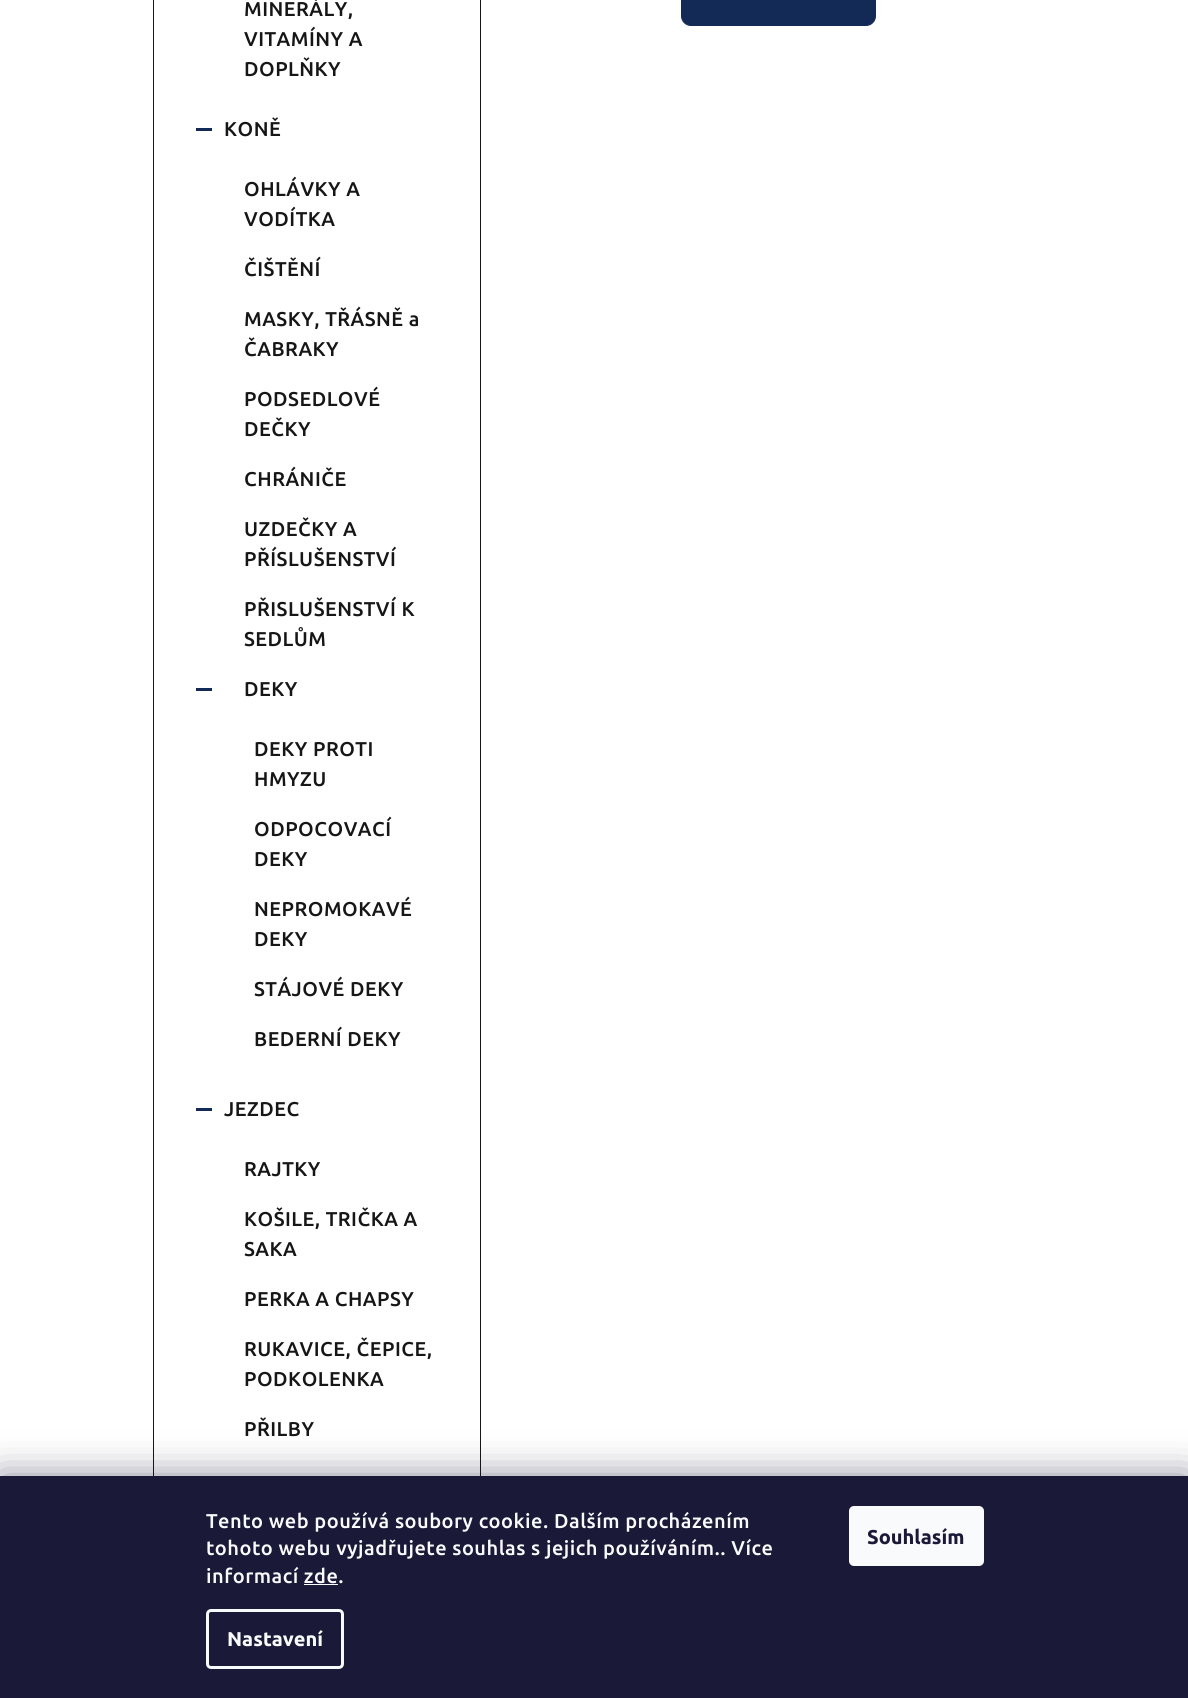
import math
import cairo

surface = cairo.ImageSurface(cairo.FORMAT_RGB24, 1188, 1698)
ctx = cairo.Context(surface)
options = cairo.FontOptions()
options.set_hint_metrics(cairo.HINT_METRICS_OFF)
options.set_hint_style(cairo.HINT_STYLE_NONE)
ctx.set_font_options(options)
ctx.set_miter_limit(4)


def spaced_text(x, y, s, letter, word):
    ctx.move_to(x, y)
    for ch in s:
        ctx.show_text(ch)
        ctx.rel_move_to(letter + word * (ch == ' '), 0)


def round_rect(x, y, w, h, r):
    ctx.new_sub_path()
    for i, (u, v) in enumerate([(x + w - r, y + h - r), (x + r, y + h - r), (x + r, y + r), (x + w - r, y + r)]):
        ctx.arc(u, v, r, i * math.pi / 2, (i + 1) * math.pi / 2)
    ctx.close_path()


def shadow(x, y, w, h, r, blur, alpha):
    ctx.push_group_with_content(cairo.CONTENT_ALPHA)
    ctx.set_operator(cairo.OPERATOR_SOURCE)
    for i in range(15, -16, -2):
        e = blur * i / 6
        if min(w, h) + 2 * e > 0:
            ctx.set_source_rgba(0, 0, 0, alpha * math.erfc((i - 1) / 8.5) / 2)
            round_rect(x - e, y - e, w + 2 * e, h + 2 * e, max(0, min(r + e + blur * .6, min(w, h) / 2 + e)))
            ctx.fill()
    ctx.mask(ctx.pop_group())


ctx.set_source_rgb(1, 1, 1)
ctx.paint()
ctx.rectangle(153.5, -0.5, 327, 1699)
ctx.set_source_rgb(0.086, 0.086, 0.086)
ctx.set_line_width(1)
ctx.stroke()
ctx.select_font_face("Ubuntu Medium")
ctx.set_font_size(20)
spaced_text(244, 16, "MINERÁLY,", 0.5, 0)
spaced_text(244, 46, "VITAMÍNY A", 0.5, 0)
spaced_text(244, 76, "DOPLŇKY", 0.5, 0)
ctx.set_source_rgb(0.078, 0.165, 0.341)
ctx.rectangle(196, 128, 16, 3)
ctx.fill()
ctx.set_source_rgb(0.086, 0.086, 0.086)
spaced_text(224, 136, "KONĚ", 0.5, 0)
spaced_text(244, 196, "OHLÁVKY A", 0.5, 0)
spaced_text(244, 226, "VODÍTKA", 0.5, 0)
spaced_text(244, 276, "ČIŠTĚNÍ", 0.5, 0)
spaced_text(244, 326, "MASKY, TŘÁSNĚ a", 0.5, 0)
spaced_text(244, 356, "ČABRAKY", 0.5, 0)
spaced_text(244, 406, "PODSEDLOVÉ", 0.5, 0)
spaced_text(244, 436, "DEČKY", 0.5, 0)
spaced_text(244, 486, "CHRÁNIČE", 0.5, 0)
spaced_text(244, 536, "UZDEČKY A", 0.5, 0)
spaced_text(244, 566, "PŘÍSLUŠENSTVÍ", 0.5, 0)
spaced_text(244, 616, "PŘISLUŠENSTVÍ K", 0.5, 0)
spaced_text(244, 646, "SEDLŮM", 0.5, 0)
ctx.set_source_rgb(0.078, 0.165, 0.341)
ctx.rectangle(196, 688, 16, 3)
ctx.fill()
ctx.set_source_rgb(0.086, 0.086, 0.086)
spaced_text(244, 696, "DEKY", 0.5, 0)
spaced_text(254, 756, "DEKY PROTI", 0.5, 0)
spaced_text(254, 786, "HMYZU", 0.5, 0)
spaced_text(254, 836, "ODPOCOVACÍ", 0.5, 0)
spaced_text(254, 866, "DEKY", 0.5, 0)
spaced_text(254, 916, "NEPROMOKAVÉ", 0.5, 0)
spaced_text(254, 946, "DEKY", 0.5, 0)
spaced_text(254, 996, "STÁJOVÉ DEKY", 0.5, 0)
spaced_text(254, 1046, "BEDERNÍ DEKY", 0.5, 0)
ctx.set_source_rgb(0.078, 0.165, 0.341)
ctx.rectangle(196, 1108, 16, 3)
ctx.fill()
ctx.set_source_rgb(0.086, 0.086, 0.086)
spaced_text(224, 1116, "JEZDEC", 0.5, 0)
spaced_text(244, 1176, "RAJTKY", 0.5, 0)
spaced_text(244, 1226, "KOŠILE, TRIČKA A", 0.5, 0)
spaced_text(244, 1256, "SAKA", 0.5, 0)
spaced_text(244, 1306, "PERKA A CHAPSY", 0.5, 0)
spaced_text(244, 1356, "RUKAVICE, ČEPICE,", 0.5, 0)
spaced_text(244, 1386, "PODKOLENKA", 0.5, 0)
spaced_text(244, 1436, "PŘILBY", 0.5, 0)
ctx.set_source_rgb(0.078, 0.165, 0.341)
round_rect(681.5, -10.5, 194, 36, 9.5)
ctx.fill_preserve()
ctx.stroke()
ctx.set_source_rgb(0.106, 0.098, 0.224)
shadow(0, 1476, 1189, 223, 0, 19, 0.5)
ctx.set_source_rgb(0.102, 0.098, 0.216)
ctx.rectangle(0, 1476, 1188, 222)
ctx.fill()
ctx.set_source_rgb(0.973, 0.98, 0.984)
spaced_text(206, 1528, "Tento web používá soubory cookie. Dalším procházením", 0.5, 0)
spaced_text(206, 1555, "tohoto webu vyjadřujete souhlas s jejich používáním.. Více", 0.5, 0)
spaced_text(206, 1583, "informací zde.", 0.5, 0)
ctx.rectangle(304, 1584, 34, 1)
ctx.fill()
round_rect(207.5, 1610.5, 135, 57, 3.5)
ctx.set_line_width(3)
ctx.stroke()
ctx.select_font_face("Ubuntu", cairo.FONT_SLANT_NORMAL, cairo.FONT_WEIGHT_BOLD)
ctx.move_to(227, 1646)
ctx.show_text("Nastavení")
round_rect(849, 1506, 135, 60, 5)
ctx.fill()
ctx.set_source_rgb(0.102, 0.098, 0.216)
ctx.move_to(867, 1544)
ctx.show_text("Souhlasím")
surface.write_to_png("page.png")
